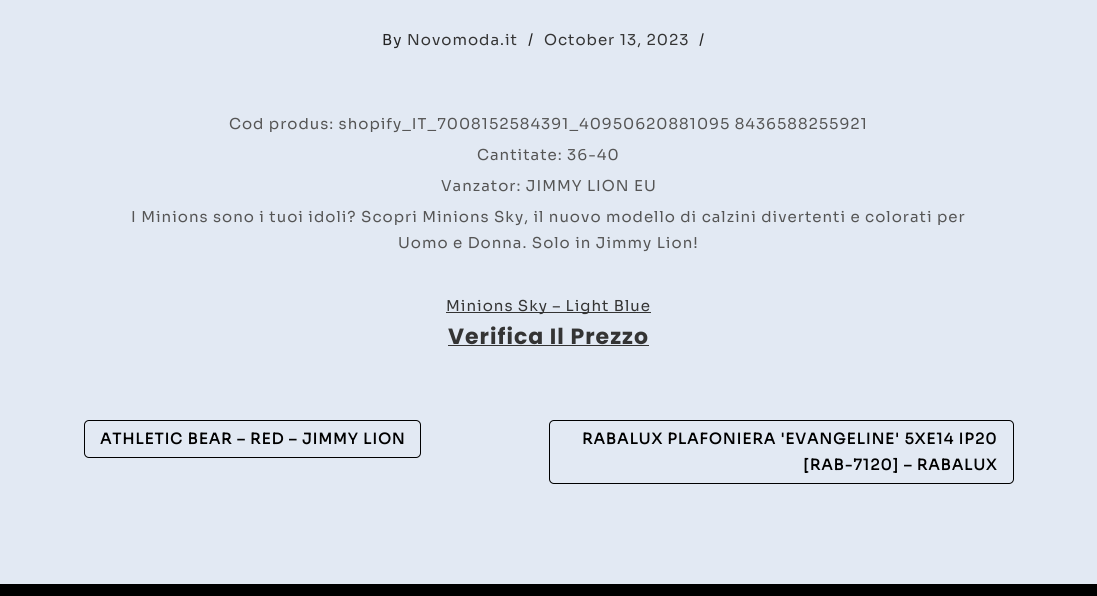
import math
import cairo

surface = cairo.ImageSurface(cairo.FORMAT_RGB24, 1097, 596)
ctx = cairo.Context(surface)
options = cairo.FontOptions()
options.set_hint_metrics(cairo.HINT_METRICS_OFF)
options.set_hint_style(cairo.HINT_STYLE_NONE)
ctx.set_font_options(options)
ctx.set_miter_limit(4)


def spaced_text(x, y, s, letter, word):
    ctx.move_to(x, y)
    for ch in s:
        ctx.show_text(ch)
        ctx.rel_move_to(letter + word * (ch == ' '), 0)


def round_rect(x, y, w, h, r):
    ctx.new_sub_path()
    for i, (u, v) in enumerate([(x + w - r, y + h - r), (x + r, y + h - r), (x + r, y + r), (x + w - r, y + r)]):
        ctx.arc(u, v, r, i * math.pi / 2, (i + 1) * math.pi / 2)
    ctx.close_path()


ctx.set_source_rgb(0.886, 0.914, 0.953)
ctx.paint()
ctx.select_font_face("Sora")
ctx.set_font_size(15)
ctx.set_source_rgb(0.145, 0.145, 0.145)
spaced_text(382, 45, "By", 1, 0)
ctx.set_source_rgb(0.204, 0.204, 0.204)
spaced_text(407, 45, "Novomoda.it", 1, 0)
ctx.set_source_rgb(0.145, 0.145, 0.145)
spaced_text(528, 45, "/", 1, 0)
ctx.set_source_rgb(0.204, 0.204, 0.204)
spaced_text(544, 45, "October 13, 2023", 1, 0)
ctx.set_source_rgb(0.145, 0.145, 0.145)
spaced_text(699, 45, "/", 1, 0)
ctx.set_source_rgb(0.333, 0.333, 0.333)
spaced_text(229, 129, "Cod produs: shopify_IT_7008152584391_40950620881095 8436588255921", 1, 0)
spaced_text(477, 160, "Cantitate: 36-40", 1, 0)
spaced_text(441, 191, "Vanzator: JIMMY LION EU", 1, 0)
spaced_text(131, 222, "I Minions sono i tuoi idoli? Scopri Minions Sky, il nuovo modello di calzini divertenti e colorati per", 1, 0)
spaced_text(398, 248, "Uomo e Donna. Solo in Jimmy Lion!", 1, 0)
ctx.set_source_rgb(0.204, 0.204, 0.204)
ctx.rectangle(446, 312, 205, 1)
ctx.fill()
spaced_text(446, 311, "Minions Sky – Light Blue", 1, 0)
ctx.select_font_face("Poppins", cairo.FONT_SLANT_NORMAL, cairo.FONT_WEIGHT_BOLD)
ctx.set_font_size(22)
spaced_text(448, 344, "Verifica Il Prezzo", 1, 0)
ctx.rectangle(448, 345, 201, 1)
ctx.fill()
round_rect(84.5, 420.5, 336, 37, 4.5)
ctx.set_source_rgb(0, 0, 0)
ctx.set_line_width(1)
ctx.stroke()
ctx.select_font_face("Sora", cairo.FONT_SLANT_NORMAL, cairo.FONT_WEIGHT_BOLD)
ctx.set_font_size(15)
spaced_text(100, 444, "ATHLETIC BEAR – RED – JIMMY LION", 1, 0)
round_rect(549.5, 420.5, 464, 63, 4.5)
ctx.stroke()
spaced_text(582, 444, "RABALUX PLAFONIERA 'EVANGELINE' 5XE14 IP20", 1, 0)
spaced_text(803, 470, "[RAB-7120] – RABALUX", 1, 0)
ctx.rectangle(0, 584, 1097, 12)
ctx.fill()
surface.write_to_png("page.png")
